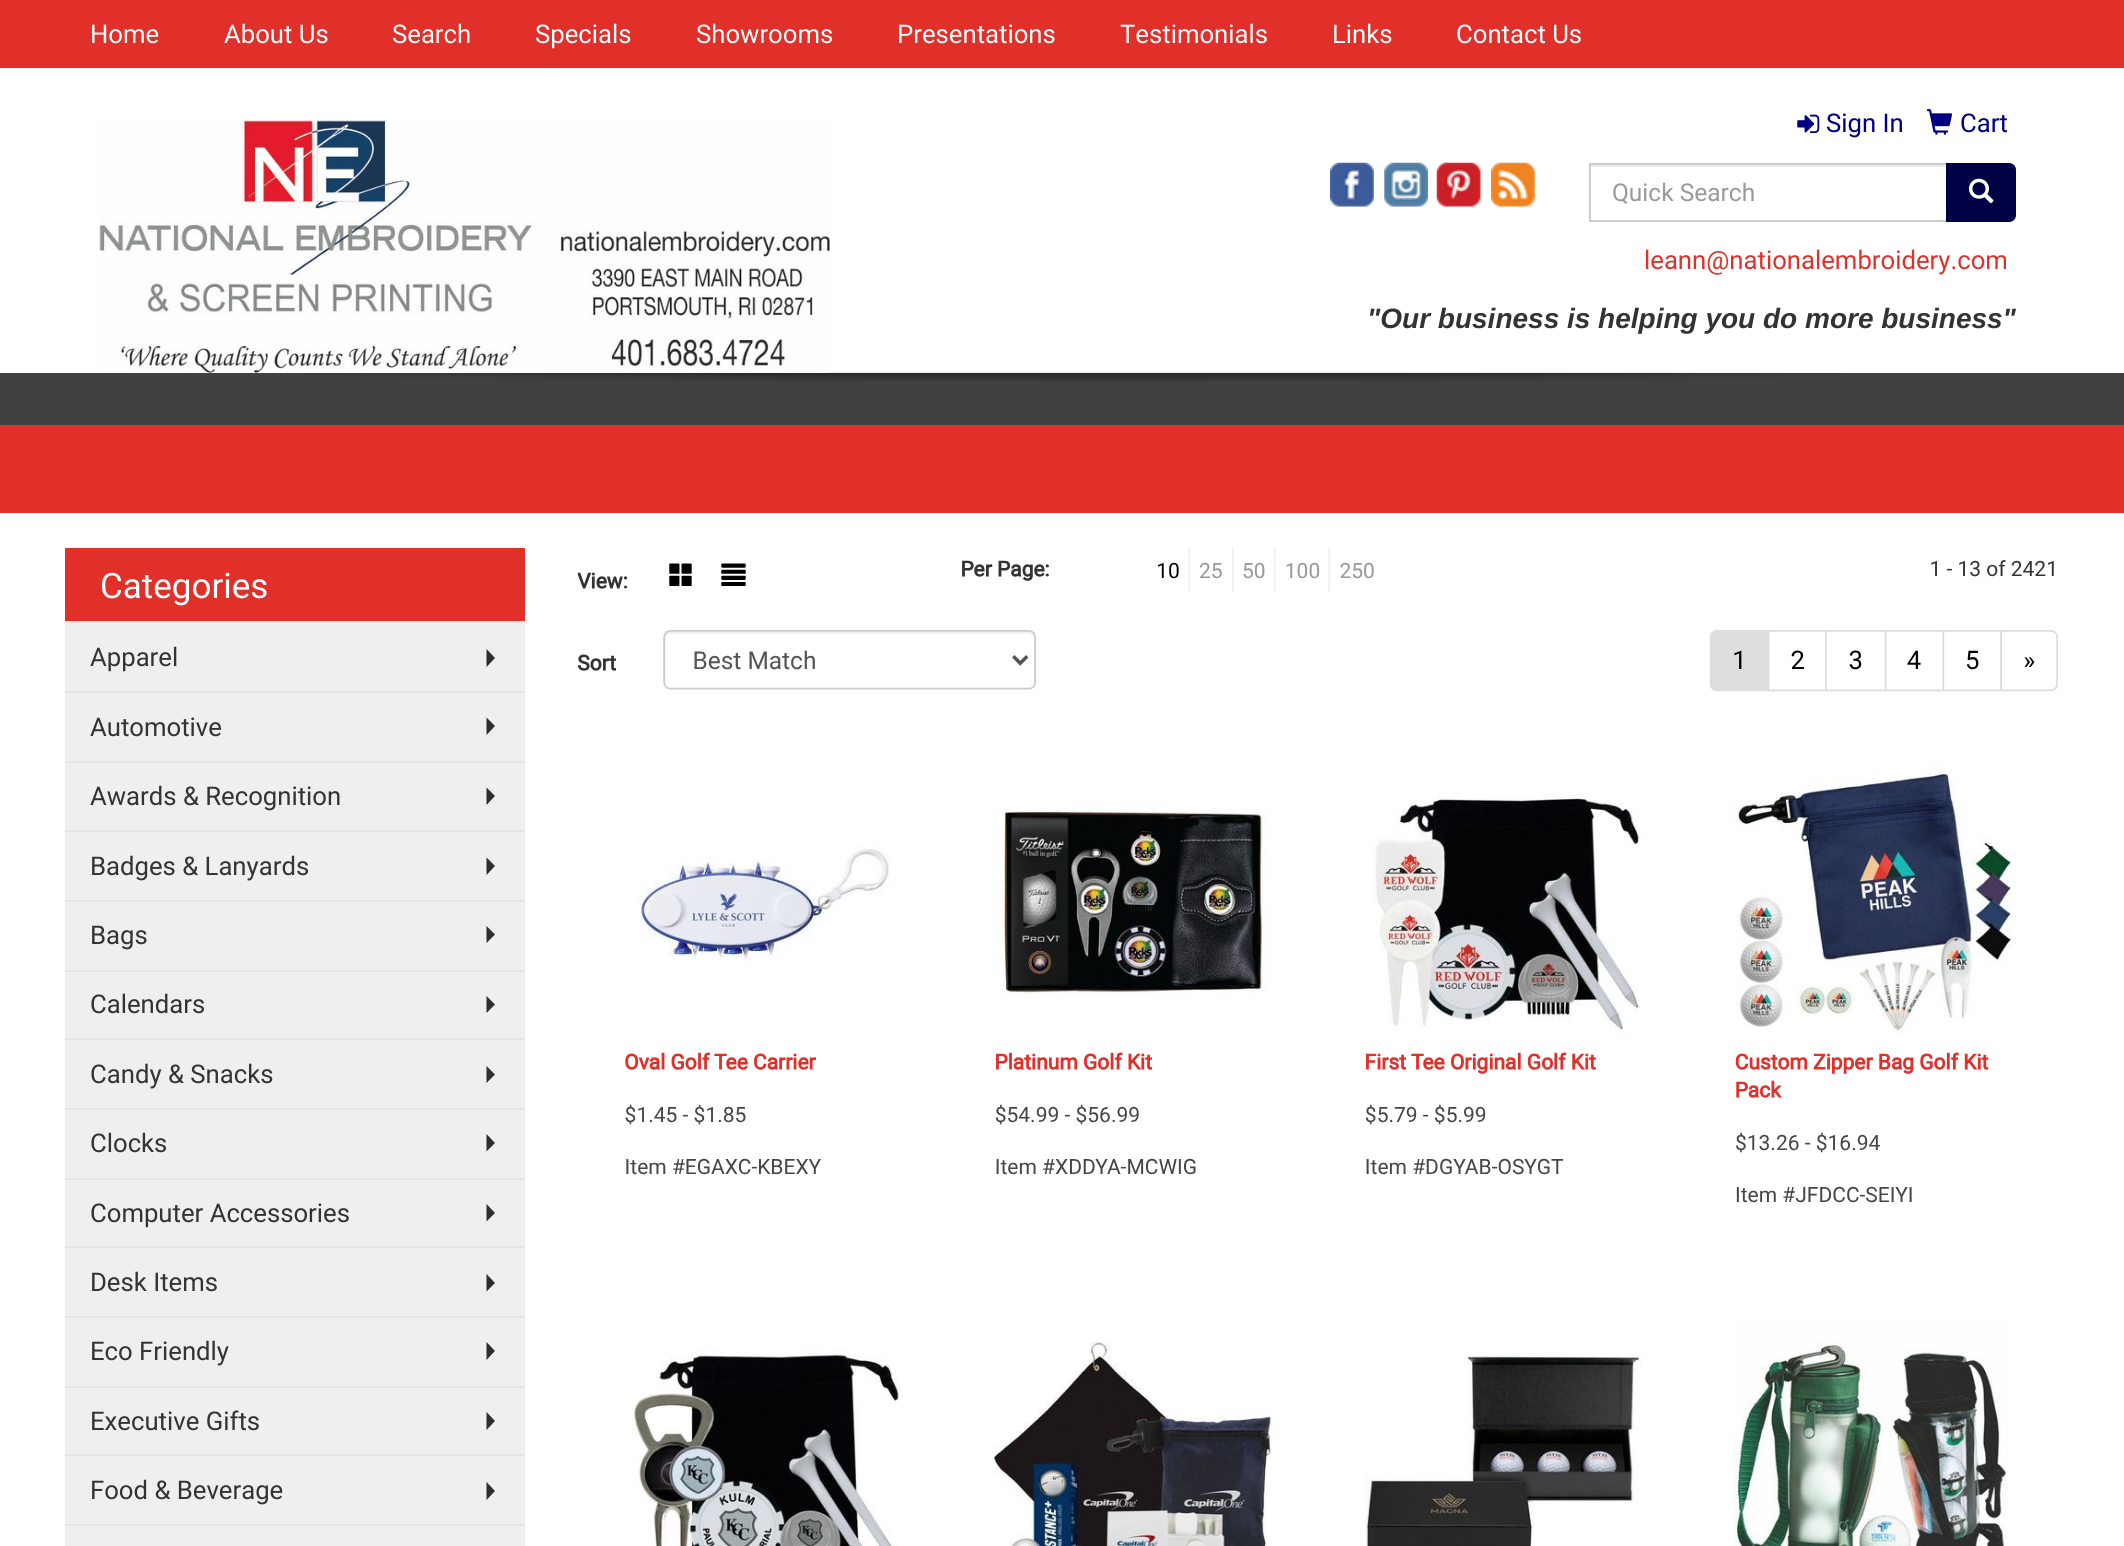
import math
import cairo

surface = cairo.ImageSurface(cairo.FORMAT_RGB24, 2124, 1546)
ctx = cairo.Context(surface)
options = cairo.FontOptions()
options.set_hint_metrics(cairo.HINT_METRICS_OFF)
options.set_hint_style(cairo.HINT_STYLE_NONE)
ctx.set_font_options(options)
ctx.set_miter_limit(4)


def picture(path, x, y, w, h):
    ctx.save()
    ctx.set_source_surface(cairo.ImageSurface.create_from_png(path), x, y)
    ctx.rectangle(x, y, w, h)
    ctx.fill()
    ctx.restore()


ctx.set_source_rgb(0.255, 0.255, 0.255)
ctx.paint()
ctx.set_source_rgb(0.882, 0.184, 0.161)
ctx.rectangle(0, 0, 2124, 68)
ctx.fill()
ctx.select_font_face("Roboto")
ctx.set_font_size(25.7)
ctx.set_source_rgb(1, 1, 1)
ctx.move_to(90, 43)
ctx.show_text("Home")
ctx.move_to(224, 43)
ctx.show_text("About Us")
ctx.move_to(392, 43)
ctx.show_text("Search")
ctx.move_to(535, 43)
ctx.show_text("Specials")
ctx.move_to(696, 43)
ctx.show_text("Showrooms")
ctx.move_to(897, 43)
ctx.show_text("Presentations")
ctx.move_to(1120, 43)
ctx.show_text("Testimonials")
ctx.move_to(1332, 43)
ctx.show_text("Links")
ctx.move_to(1456, 43)
ctx.show_text("Contact Us")
ctx.rectangle(0, 68, 2124, 305)
ctx.fill()
picture("img9.png", 302, 372, 1542, 10)
picture("img1.png", 99, 120, 731, 253)
picture("img2.png", 1797, 114, 23, 19)
ctx.set_source_rgb(0, 0, 0.502)
ctx.move_to(1826, 132)
ctx.show_text("Sign In")
picture("img3.png", 1926, 109, 26, 26)
ctx.move_to(1960, 132)
ctx.show_text("Cart")
picture("img4.png", 1330, 162, 44, 45)
picture("img5.png", 1384, 162, 44, 45)
picture("img6.png", 1436, 162, 45, 45)
picture("img7.png", 1491, 162, 44, 45)
ctx.set_source_rgb(0.925, 0.925, 0.925)
ctx.rectangle(1591, 165, 355, 2)
ctx.fill()
ctx.rectangle(1590, 164, 357, 57)
ctx.set_source_rgb(0.8, 0.8, 0.8)
ctx.stroke()
ctx.set_font_size(24.5)
ctx.set_source_rgb(0.6, 0.6, 0.6)
ctx.move_to(1612, 201)
ctx.show_text("Quick Search")
ctx.set_source_rgb(0, 0, 0.267)
ctx.new_path()
ctx.move_to(1947, 164)
ctx.line_to(2009, 164)
ctx.curve_to(2012.5, 164, 2015, 166.5, 2015, 170)
ctx.line_to(2015, 215)
ctx.curve_to(2015, 218.5, 2012.5, 221, 2009, 221)
ctx.line_to(1947, 221)
ctx.close_path()
ctx.fill_preserve()
ctx.stroke()
picture("img8.png", 1968, 178, 26, 26)
ctx.set_font_size(25.7)
ctx.set_source_rgb(0.882, 0.184, 0.161)
ctx.move_to(1644, 269)
ctx.show_text("leann@nationalembroidery.com")
ctx.select_font_face("Liberation Sans", cairo.FONT_SLANT_ITALIC, cairo.FONT_WEIGHT_BOLD)
ctx.set_font_size(28)
ctx.set_source_rgb(0.2, 0.2, 0.2)
ctx.move_to(1367, 328)
ctx.show_text("\"Our business is helping you do more business\"")
ctx.set_source_rgb(0.882, 0.184, 0.161)
ctx.rectangle(0, 425, 2124, 88)
ctx.fill()
ctx.set_source_rgb(1, 1, 1)
ctx.rectangle(0, 513, 2124, 1033)
ctx.fill()
ctx.set_source_rgb(0.882, 0.184, 0.161)
ctx.rectangle(65, 548, 460, 73)
ctx.fill()
ctx.select_font_face("Roboto")
ctx.set_font_size(35)
ctx.set_source_rgb(1, 1, 1)
ctx.move_to(100, 598)
ctx.show_text("Categories")
ctx.set_source_rgb(0.937, 0.937, 0.937)
ctx.rectangle(65, 623, 460, 68)
ctx.fill()
ctx.set_source_rgb(0.898, 0.898, 0.898)
ctx.rectangle(65, 621, 460, 2)
ctx.fill()
ctx.set_font_size(25.7)
ctx.set_source_rgb(0.2, 0.2, 0.2)
ctx.move_to(90, 666)
ctx.show_text("Apparel")
ctx.set_source_rgb(0.18, 0.18, 0.18)
ctx.new_path()
ctx.move_to(486.5, 667)
ctx.line_to(486.5, 649)
ctx.line_to(495, 658)
ctx.close_path()
ctx.fill()
ctx.set_source_rgb(0.937, 0.937, 0.937)
ctx.rectangle(65, 693, 460, 68)
ctx.fill()
ctx.set_source_rgb(0.898, 0.898, 0.898)
ctx.rectangle(65, 691, 460, 2)
ctx.fill()
ctx.set_source_rgb(0.2, 0.2, 0.2)
ctx.move_to(90, 736)
ctx.show_text("Automotive")
ctx.set_source_rgb(0.18, 0.18, 0.18)
ctx.new_path()
ctx.move_to(486.5, 735)
ctx.line_to(486.5, 717.5)
ctx.line_to(495, 726)
ctx.close_path()
ctx.fill()
ctx.set_source_rgb(0.937, 0.937, 0.937)
ctx.rectangle(65, 763, 460, 67)
ctx.fill()
ctx.set_source_rgb(0.898, 0.898, 0.898)
ctx.rectangle(65, 761, 460, 2)
ctx.fill()
ctx.set_source_rgb(0.2, 0.2, 0.2)
ctx.move_to(90, 805)
ctx.show_text("Awards & Recognition")
ctx.set_source_rgb(0.18, 0.18, 0.18)
ctx.new_path()
ctx.move_to(486.5, 805)
ctx.line_to(486.5, 787.5)
ctx.line_to(495, 796)
ctx.close_path()
ctx.fill()
ctx.set_source_rgb(0.937, 0.937, 0.937)
ctx.rectangle(65, 832, 460, 68)
ctx.fill()
ctx.set_source_rgb(0.898, 0.898, 0.898)
ctx.rectangle(65, 830, 460, 2)
ctx.fill()
ctx.set_source_rgb(0.2, 0.2, 0.2)
ctx.move_to(90, 875)
ctx.show_text("Badges & Lanyards")
ctx.set_source_rgb(0.18, 0.18, 0.18)
ctx.new_path()
ctx.move_to(486.5, 875)
ctx.line_to(486.5, 857.5)
ctx.line_to(495, 866)
ctx.close_path()
ctx.fill()
ctx.set_source_rgb(0.937, 0.937, 0.937)
ctx.rectangle(65, 902, 460, 68)
ctx.fill()
ctx.set_source_rgb(0.898, 0.898, 0.898)
ctx.rectangle(65, 900, 460, 2)
ctx.fill()
ctx.set_source_rgb(0.2, 0.2, 0.2)
ctx.move_to(90, 944)
ctx.show_text("Bags")
ctx.set_source_rgb(0.18, 0.18, 0.18)
ctx.new_path()
ctx.move_to(486.5, 943)
ctx.line_to(486.5, 926)
ctx.line_to(495, 934.5)
ctx.close_path()
ctx.fill()
ctx.set_source_rgb(0.937, 0.937, 0.937)
ctx.rectangle(65, 972, 460, 66)
ctx.fill()
ctx.set_source_rgb(0.898, 0.898, 0.898)
ctx.rectangle(65, 970, 460, 2)
ctx.fill()
ctx.set_source_rgb(0.2, 0.2, 0.2)
ctx.move_to(90, 1013)
ctx.show_text("Calendars")
ctx.set_source_rgb(0.18, 0.18, 0.18)
ctx.new_path()
ctx.move_to(486.5, 1013)
ctx.line_to(486.5, 996)
ctx.line_to(495, 1004.5)
ctx.close_path()
ctx.fill()
ctx.set_source_rgb(0.937, 0.937, 0.937)
ctx.rectangle(65, 1040, 460, 68)
ctx.fill()
ctx.set_source_rgb(0.898, 0.898, 0.898)
ctx.rectangle(65, 1038, 460, 2)
ctx.fill()
ctx.set_source_rgb(0.2, 0.2, 0.2)
ctx.move_to(90, 1083)
ctx.show_text("Candy & Snacks")
ctx.set_source_rgb(0.18, 0.18, 0.18)
ctx.new_path()
ctx.move_to(486.5, 1083)
ctx.line_to(486.5, 1066)
ctx.line_to(495, 1074.5)
ctx.close_path()
ctx.fill()
ctx.set_source_rgb(0.937, 0.937, 0.937)
ctx.rectangle(65, 1110, 460, 68)
ctx.fill()
ctx.set_source_rgb(0.898, 0.898, 0.898)
ctx.rectangle(65, 1108, 460, 2)
ctx.fill()
ctx.set_source_rgb(0.2, 0.2, 0.2)
ctx.move_to(90, 1152)
ctx.show_text("Clocks")
ctx.set_source_rgb(0.18, 0.18, 0.18)
ctx.new_path()
ctx.move_to(486.5, 1151.5)
ctx.line_to(486.5, 1134)
ctx.line_to(495, 1143)
ctx.close_path()
ctx.fill()
ctx.set_source_rgb(0.937, 0.937, 0.937)
ctx.rectangle(65, 1180, 460, 66)
ctx.fill()
ctx.set_source_rgb(0.898, 0.898, 0.898)
ctx.rectangle(65, 1178, 460, 2)
ctx.fill()
ctx.set_source_rgb(0.2, 0.2, 0.2)
ctx.move_to(90, 1222)
ctx.show_text("Computer Accessories")
ctx.set_source_rgb(0.18, 0.18, 0.18)
ctx.new_path()
ctx.move_to(486.5, 1221.5)
ctx.line_to(486.5, 1204)
ctx.line_to(495, 1213)
ctx.close_path()
ctx.fill()
ctx.set_source_rgb(0.937, 0.937, 0.937)
ctx.rectangle(65, 1248, 460, 68)
ctx.fill()
ctx.set_source_rgb(0.898, 0.898, 0.898)
ctx.rectangle(65, 1246, 460, 2)
ctx.fill()
ctx.set_source_rgb(0.2, 0.2, 0.2)
ctx.move_to(90, 1291)
ctx.show_text("Desk Items")
ctx.set_source_rgb(0.18, 0.18, 0.18)
ctx.new_path()
ctx.move_to(486.5, 1291.5)
ctx.line_to(486.5, 1274)
ctx.line_to(495, 1283)
ctx.close_path()
ctx.fill()
ctx.set_source_rgb(0.937, 0.937, 0.937)
ctx.rectangle(65, 1318, 460, 68)
ctx.fill()
ctx.set_source_rgb(0.898, 0.898, 0.898)
ctx.rectangle(65, 1316, 460, 2)
ctx.fill()
ctx.set_source_rgb(0.2, 0.2, 0.2)
ctx.move_to(90, 1360)
ctx.show_text("Eco Friendly")
ctx.set_source_rgb(0.18, 0.18, 0.18)
ctx.new_path()
ctx.move_to(486.5, 1360)
ctx.line_to(486.5, 1342)
ctx.line_to(495, 1351)
ctx.close_path()
ctx.fill()
ctx.set_source_rgb(0.937, 0.937, 0.937)
ctx.rectangle(65, 1388, 460, 66)
ctx.fill()
ctx.set_source_rgb(0.898, 0.898, 0.898)
ctx.rectangle(65, 1386, 460, 2)
ctx.fill()
ctx.set_source_rgb(0.2, 0.2, 0.2)
ctx.move_to(90, 1430)
ctx.show_text("Executive Gifts")
ctx.set_source_rgb(0.18, 0.18, 0.18)
ctx.new_path()
ctx.move_to(486.5, 1430)
ctx.line_to(486.5, 1412)
ctx.line_to(495, 1421)
ctx.close_path()
ctx.fill()
ctx.set_source_rgb(0.937, 0.937, 0.937)
ctx.rectangle(65, 1456, 460, 68)
ctx.fill()
ctx.set_source_rgb(0.898, 0.898, 0.898)
ctx.rectangle(65, 1454, 460, 2)
ctx.fill()
ctx.set_source_rgb(0.2, 0.2, 0.2)
ctx.move_to(90, 1499)
ctx.show_text("Food & Beverage")
ctx.set_source_rgb(0.18, 0.18, 0.18)
ctx.new_path()
ctx.move_to(486.5, 1500)
ctx.line_to(486.5, 1482)
ctx.line_to(495, 1491)
ctx.close_path()
ctx.fill()
ctx.set_source_rgb(0.937, 0.937, 0.937)
ctx.rectangle(65, 1526, 460, 20)
ctx.fill()
ctx.set_source_rgb(0.898, 0.898, 0.898)
ctx.rectangle(65, 1524, 460, 2)
ctx.fill()
picture("img10.png", 577, 548, 1481, 998)
surface.write_to_png("page.png")
